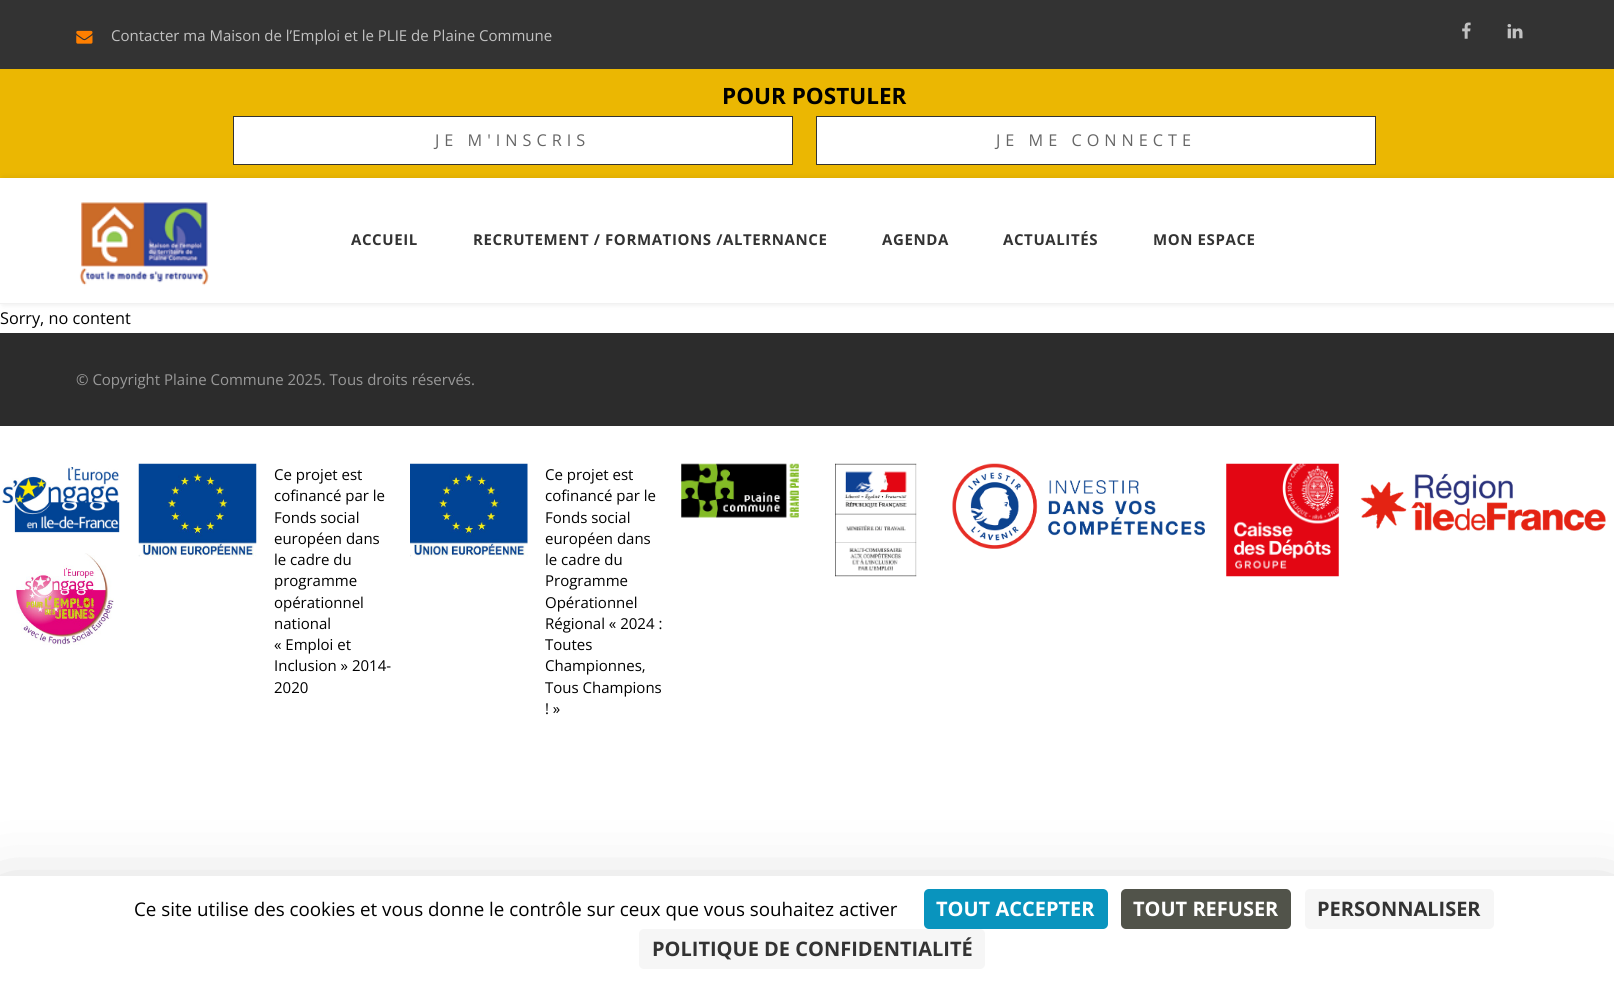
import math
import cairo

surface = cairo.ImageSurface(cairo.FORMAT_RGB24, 1614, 981)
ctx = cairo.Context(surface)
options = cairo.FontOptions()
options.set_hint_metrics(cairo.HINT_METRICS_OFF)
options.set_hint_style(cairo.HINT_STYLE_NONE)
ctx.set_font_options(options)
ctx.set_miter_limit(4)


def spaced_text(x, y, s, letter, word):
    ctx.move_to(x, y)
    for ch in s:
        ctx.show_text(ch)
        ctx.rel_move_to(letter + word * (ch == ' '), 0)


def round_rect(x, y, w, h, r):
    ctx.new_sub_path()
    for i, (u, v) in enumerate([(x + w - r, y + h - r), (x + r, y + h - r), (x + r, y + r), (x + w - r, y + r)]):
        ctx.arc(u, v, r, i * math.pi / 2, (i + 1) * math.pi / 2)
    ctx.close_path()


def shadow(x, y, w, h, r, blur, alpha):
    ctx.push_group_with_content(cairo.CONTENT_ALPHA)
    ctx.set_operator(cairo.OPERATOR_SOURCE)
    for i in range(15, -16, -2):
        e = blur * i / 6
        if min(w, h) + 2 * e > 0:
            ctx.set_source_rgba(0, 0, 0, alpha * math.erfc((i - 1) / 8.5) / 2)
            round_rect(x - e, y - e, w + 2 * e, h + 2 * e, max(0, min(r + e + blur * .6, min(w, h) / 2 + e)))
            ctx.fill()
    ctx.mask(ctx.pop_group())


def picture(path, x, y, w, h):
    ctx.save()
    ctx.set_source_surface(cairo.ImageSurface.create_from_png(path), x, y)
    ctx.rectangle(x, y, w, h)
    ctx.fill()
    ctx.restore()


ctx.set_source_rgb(1, 1, 1)
ctx.paint()
ctx.set_source_rgb(0.2, 0.2, 0.2)
ctx.rectangle(0, 0, 1614, 69)
ctx.fill()
picture("img1.png", 76, 30, 17, 14)
ctx.select_font_face("Open Sans")
ctx.set_font_size(15)
ctx.set_source_rgb(0.761, 0.761, 0.761)
ctx.move_to(111, 41)
ctx.show_text("Contacter ma Maison de l’Emploi et le PLIE de Plaine Commune")
picture("img2.png", 1462, 22, 9, 17)
picture("img3.png", 1507, 24, 16, 15)
ctx.set_source_rgb(0.918, 0.718, 0.008)
ctx.rectangle(0, 69, 1614, 109)
ctx.fill()
ctx.select_font_face("Open Sans", cairo.FONT_SLANT_NORMAL, cairo.FONT_WEIGHT_BOLD)
ctx.set_font_size(22.5)
ctx.set_source_rgb(0, 0, 0)
ctx.move_to(722, 104)
ctx.show_text("POUR POSTULER")
ctx.set_source_rgb(1, 1, 1)
ctx.rectangle(233.5, 116.5, 559, 48)
ctx.fill_preserve()
ctx.set_source_rgb(0.2, 0.2, 0.2)
ctx.set_line_width(1)
ctx.stroke()
ctx.select_font_face("Open Sans")
ctx.set_font_size(16.25)
ctx.set_source_rgb(0.4, 0.4, 0.4)
spaced_text(435, 146, "JE M'INSCRIS", 5, 0)
ctx.set_source_rgb(1, 1, 1)
ctx.rectangle(816.5, 116.5, 559, 48)
ctx.fill_preserve()
ctx.set_source_rgb(0.2, 0.2, 0.2)
ctx.stroke()
ctx.set_source_rgb(0.4, 0.4, 0.4)
spaced_text(996, 146, "JE ME CONNECTE", 5, 0)
ctx.save()
ctx.set_fill_rule(cairo.FILL_RULE_EVEN_ODD)
ctx.new_path()
ctx.move_to(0, 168)
ctx.line_to(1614, 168)
ctx.line_to(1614, 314)
ctx.line_to(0, 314)
ctx.close_path()
ctx.move_to(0, 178)
ctx.line_to(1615, 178)
ctx.line_to(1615, 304)
ctx.line_to(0, 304)
ctx.close_path()
ctx.clip()
ctx.set_source_rgb(0, 0, 0)
shadow(3, 178, 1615, 126, 0, 3, 0.1)
ctx.restore()
ctx.set_source_rgb(0.945, 0.945, 0.945)
ctx.rectangle(0, 303, 1614, 1)
ctx.fill()
picture("img4.png", 79, 202, 130, 84)
ctx.select_font_face("Open Sans", cairo.FONT_SLANT_NORMAL, cairo.FONT_WEIGHT_BOLD)
ctx.set_font_size(15)
ctx.set_source_rgb(0.2, 0.2, 0.2)
spaced_text(351, 245, "ACCUEIL", 0.6, 0)
spaced_text(473, 245, "RECRUTEMENT / FORMATIONS /ALTERNANCE", 0.6, 0)
spaced_text(882, 245, "AGENDA", 0.6, 0)
spaced_text(1003, 245, "ACTUALITÉS", 0.6, 0)
spaced_text(1153, 245, "MON ESPACE", 0.6, 0)
ctx.select_font_face("Open Sans")
ctx.set_font_size(16.25)
ctx.set_source_rgb(0, 0, 0)
ctx.move_to(0, 324)
ctx.show_text("Sorry, no content")
ctx.set_source_rgb(0.173, 0.173, 0.173)
ctx.rectangle(0, 333, 1614, 93)
ctx.fill()
ctx.set_font_size(15)
ctx.set_source_rgb(0.6, 0.6, 0.6)
ctx.move_to(76, 385)
ctx.show_text("© Copyright Plaine Commune 2025. Tous droits réservés.")
picture("img5.png", 2, 467, 118, 66)
picture("img6.png", 16, 553, 98, 92)
picture("img7.png", 138, 463, 119, 94)
ctx.set_source_rgb(0, 0, 0)
ctx.move_to(274, 480)
ctx.show_text("Ce projet est")
ctx.move_to(274, 501)
ctx.show_text("cofinancé par le")
ctx.move_to(274, 523)
ctx.show_text("Fonds social")
ctx.move_to(274, 544)
ctx.show_text("européen dans")
ctx.move_to(274, 565)
ctx.show_text("le cadre du")
ctx.move_to(274, 586)
ctx.show_text("programme")
ctx.move_to(274, 608)
ctx.show_text("opérationnel")
ctx.move_to(274, 629)
ctx.show_text("national")
ctx.move_to(274, 650)
ctx.show_text("« Emploi et")
ctx.move_to(274, 671)
ctx.show_text("Inclusion » 2014-")
ctx.move_to(274, 693)
ctx.show_text("2020")
picture("img8.png", 410, 463, 118, 94)
ctx.move_to(545, 480)
ctx.show_text("Ce projet est")
ctx.move_to(545, 501)
ctx.show_text("cofinancé par le")
ctx.move_to(545, 523)
ctx.show_text("Fonds social")
ctx.move_to(545, 544)
ctx.show_text("européen dans")
ctx.move_to(545, 565)
ctx.show_text("le cadre du")
ctx.move_to(545, 586)
ctx.show_text("Programme")
ctx.move_to(545, 608)
ctx.show_text("Opérationnel")
ctx.move_to(545, 629)
ctx.show_text("Régional « 2024 :")
ctx.move_to(545, 650)
ctx.show_text("Toutes")
ctx.move_to(545, 671)
ctx.show_text("Championnes,")
ctx.move_to(545, 693)
ctx.show_text("Tous Champions")
ctx.move_to(545, 714)
ctx.show_text("! »")
picture("img9.png", 681, 463, 118, 55)
picture("img10.png", 835, 463, 82, 114)
picture("img11.png", 952, 463, 253, 86)
picture("img12.png", 1226, 463, 113, 114)
picture("img13.png", 1360, 473, 246, 58)
ctx.set_source_rgb(0, 0, 0)
shadow(0, 901, 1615, 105, 0, 37.5, 0.25)
ctx.set_source_rgb(1, 1, 1)
ctx.rectangle(0, 876, 1614, 105)
ctx.fill()
ctx.set_font_size(18.75)
ctx.set_source_rgb(0, 0, 0)
ctx.move_to(134, 916)
ctx.show_text("Ce site utilise des cookies et vous donne le contrôle sur ceux que vous souhaitez activer")
ctx.set_source_rgb(0.039, 0.58, 0.745)
round_rect(924, 889, 184, 40, 5)
ctx.fill()
ctx.select_font_face("Open Sans", cairo.FONT_SLANT_NORMAL, cairo.FONT_WEIGHT_BOLD)
ctx.set_font_size(20)
ctx.set_source_rgb(1, 1, 1)
ctx.move_to(936, 916)
ctx.show_text("TOUT ACCEPTER")
ctx.set_source_rgb(0.318, 0.325, 0.29)
round_rect(1121, 889, 170, 40, 5)
ctx.fill()
ctx.set_source_rgb(1, 1, 1)
ctx.move_to(1133, 916)
ctx.show_text("TOUT REFUSER")
ctx.set_source_rgb(0.961, 0.961, 0.961)
round_rect(1305, 889, 189, 40, 5)
ctx.fill()
ctx.set_source_rgb(0.2, 0.2, 0.2)
ctx.move_to(1317, 916)
ctx.show_text("PERSONNALISER")
ctx.set_source_rgb(0.961, 0.961, 0.961)
round_rect(639, 929, 346, 40, 5)
ctx.fill()
ctx.set_source_rgb(0.2, 0.2, 0.2)
ctx.move_to(652, 956)
ctx.show_text("POLITIQUE DE CONFIDENTIALITÉ")
surface.write_to_png("page.png")
